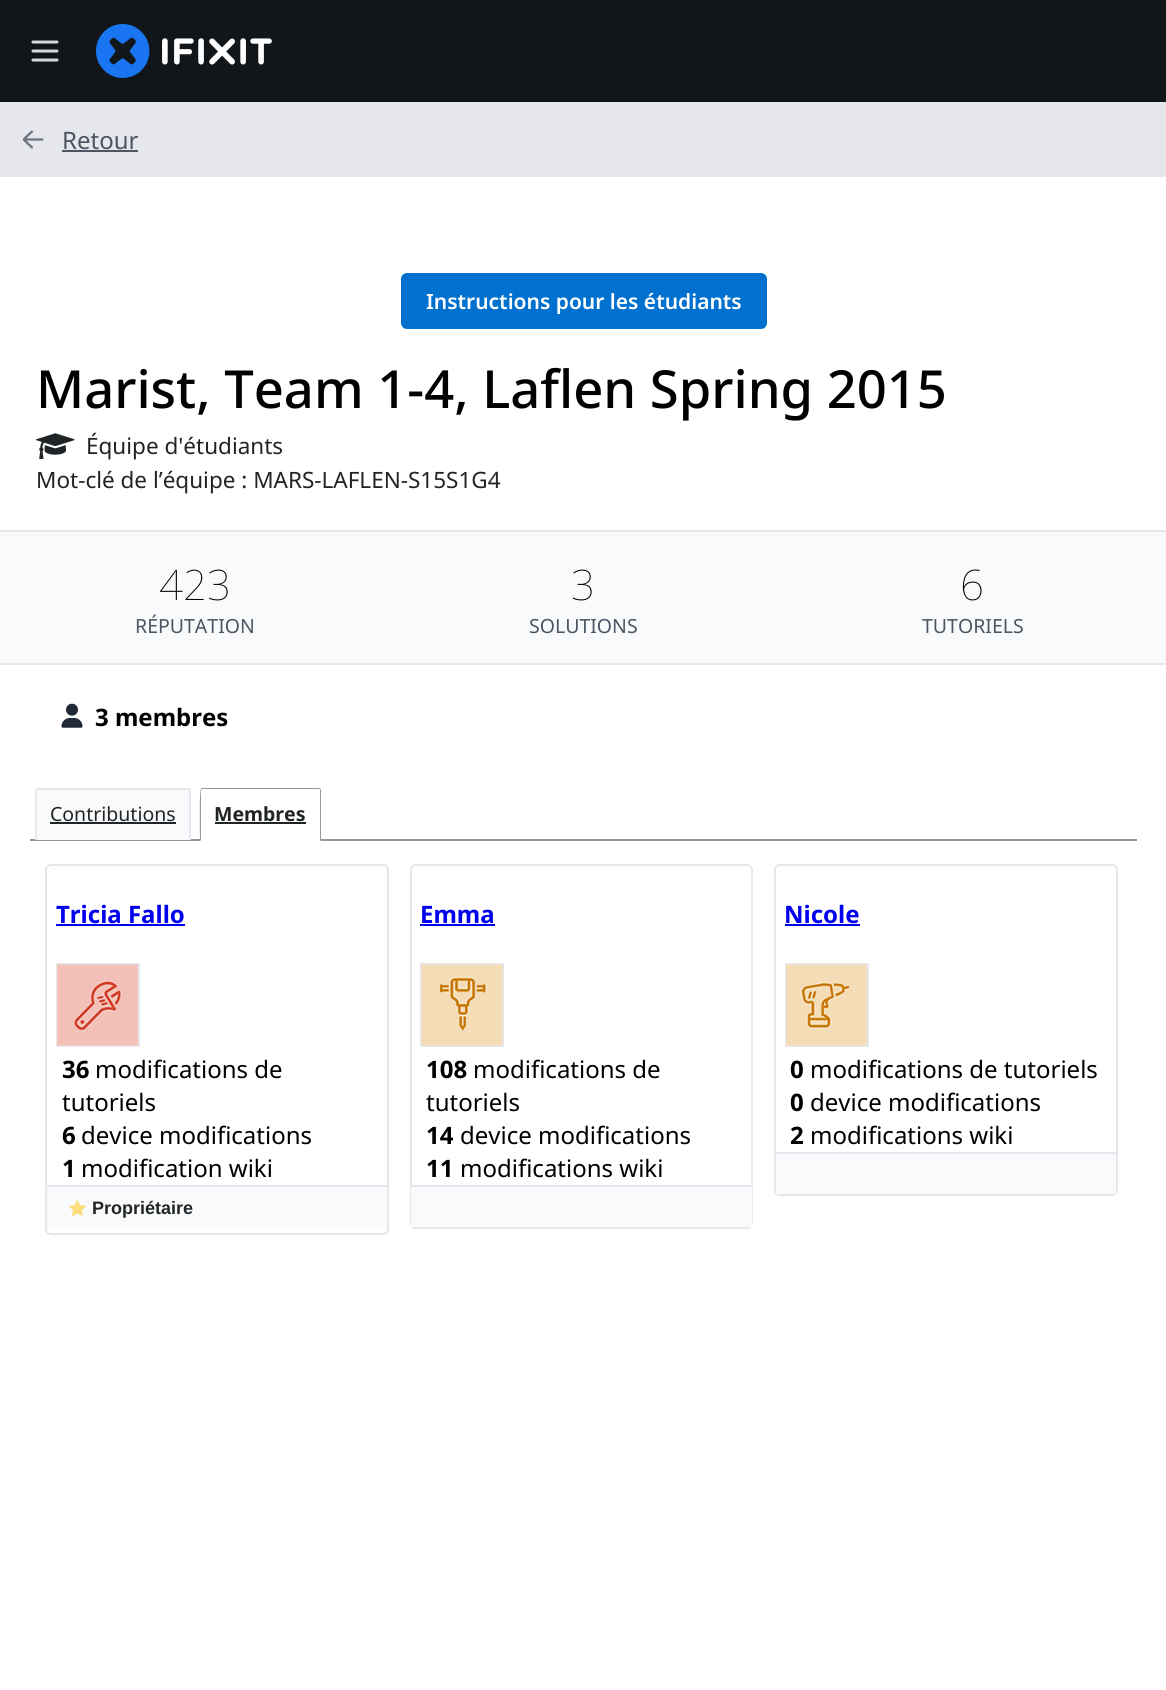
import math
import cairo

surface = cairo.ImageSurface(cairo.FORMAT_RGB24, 1166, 1690)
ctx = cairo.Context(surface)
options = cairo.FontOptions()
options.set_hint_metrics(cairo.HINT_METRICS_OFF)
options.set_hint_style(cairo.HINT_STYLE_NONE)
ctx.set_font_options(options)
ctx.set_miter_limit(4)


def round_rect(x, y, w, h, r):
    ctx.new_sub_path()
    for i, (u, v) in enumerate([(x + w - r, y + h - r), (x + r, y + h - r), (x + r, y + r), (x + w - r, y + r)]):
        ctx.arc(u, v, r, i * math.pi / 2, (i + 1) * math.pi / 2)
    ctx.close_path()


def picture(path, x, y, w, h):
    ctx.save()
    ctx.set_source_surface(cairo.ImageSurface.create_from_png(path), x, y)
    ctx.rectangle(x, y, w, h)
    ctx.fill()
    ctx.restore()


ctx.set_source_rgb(1, 1, 1)
ctx.paint()
ctx.set_source_rgb(0.067, 0.086, 0.102)
ctx.rectangle(0, 0, 1166, 102)
ctx.fill()
ctx.new_path()
ctx.move_to(33, 51)
ctx.line_to(57, 51)
ctx.move_to(33, 42)
ctx.line_to(57, 42)
ctx.move_to(33, 60)
ctx.line_to(57, 60)
ctx.set_source_rgb(0.824, 0.855, 0.875)
ctx.set_line_width(3)
ctx.set_line_cap(cairo.LINE_CAP_ROUND)
ctx.set_line_join(cairo.LINE_JOIN_ROUND)
ctx.stroke()
picture("img1.png", 96, 24, 176, 54)
ctx.set_source_rgb(0.898, 0.906, 0.922)
ctx.rectangle(0, 102, 1166, 75)
ctx.fill()
picture("img2.png", 23, 130, 21, 19)
ctx.select_font_face("Noto Sans")
ctx.set_font_size(24)
ctx.set_source_rgb(0.294, 0.333, 0.388)
ctx.move_to(62, 149)
ctx.show_text("Retour")
ctx.rectangle(62, 150, 76, 2)
ctx.fill()
ctx.set_source_rgb(0, 0.443, 0.808)
round_rect(402, 274, 364, 54, 5)
ctx.fill_preserve()
ctx.set_line_width(2)
ctx.set_line_cap(cairo.LINE_CAP_BUTT)
ctx.set_line_join(cairo.LINE_JOIN_MITER)
ctx.stroke()
ctx.select_font_face("Noto Sans SemiBold")
ctx.set_font_size(21)
ctx.set_source_rgb(1, 1, 1)
ctx.move_to(426, 309)
ctx.show_text("Instructions pour les étudiants")
ctx.select_font_face("Noto Sans Medium")
ctx.set_font_size(52.5)
ctx.set_source_rgb(0, 0, 0)
ctx.move_to(36, 408)
ctx.show_text("Marist, Team 1-4, Laflen Spring 2015")
picture("img3.png", 36, 433, 39, 26)
ctx.select_font_face("Noto Sans")
ctx.set_font_size(22.5)
ctx.set_source_rgb(0.129, 0.141, 0.149)
ctx.move_to(86, 454)
ctx.show_text("Équipe d'étudiants")
ctx.move_to(36, 488)
ctx.show_text("Mot-clé de l’équipe : MARS-LAFLEN-S15S1G4")
ctx.set_source_rgb(0.976, 0.98, 0.984)
ctx.rectangle(0, 532, 1166, 131)
ctx.fill()
ctx.set_source_rgb(0.898, 0.906, 0.922)
ctx.rectangle(0, 530, 1166, 2)
ctx.fill()
ctx.rectangle(0, 663, 1166, 2)
ctx.fill()
ctx.select_font_face("Noto Sans Thin")
ctx.set_font_size(42)
ctx.set_source_rgb(0, 0, 0)
ctx.move_to(159, 600)
ctx.show_text("423")
ctx.select_font_face("Noto Sans")
ctx.set_font_size(19.5)
ctx.set_source_rgb(0.294, 0.333, 0.388)
ctx.move_to(135, 633)
ctx.show_text("RÉPUTATION")
ctx.select_font_face("Noto Sans Thin")
ctx.set_font_size(42)
ctx.set_source_rgb(0, 0, 0)
ctx.move_to(571, 600)
ctx.show_text("3")
ctx.select_font_face("Noto Sans")
ctx.set_font_size(19.5)
ctx.set_source_rgb(0.294, 0.333, 0.388)
ctx.move_to(529, 633)
ctx.show_text("SOLUTIONS")
ctx.select_font_face("Noto Sans Thin")
ctx.set_font_size(42)
ctx.set_source_rgb(0, 0, 0)
ctx.move_to(960, 600)
ctx.show_text("6")
ctx.select_font_face("Noto Sans")
ctx.set_font_size(19.5)
ctx.set_source_rgb(0.294, 0.333, 0.388)
ctx.move_to(922, 633)
ctx.show_text("TUTORIELS")
picture("img4.png", 61, 703, 22, 25)
ctx.select_font_face("Noto Sans", cairo.FONT_SLANT_NORMAL, cairo.FONT_WEIGHT_BOLD)
ctx.set_font_size(24)
ctx.set_source_rgb(0, 0, 0)
ctx.move_to(95, 726)
ctx.show_text("3 membres")
ctx.set_source_rgb(0.592, 0.592, 0.592)
ctx.rectangle(30, 839, 1107, 2)
ctx.fill()
ctx.set_source_rgb(0.976, 0.98, 0.984)
ctx.rectangle(37, 790, 152, 50)
ctx.fill()
ctx.set_source_rgb(0.898, 0.906, 0.922)
ctx.rectangle(36, 788, 153, 2)
ctx.fill()
ctx.rectangle(189, 789, 2, 51)
ctx.fill()
ctx.rectangle(35, 789, 2, 51)
ctx.fill()
ctx.select_font_face("Noto Sans")
ctx.set_font_size(19.5)
ctx.set_source_rgb(0.129, 0.141, 0.149)
ctx.move_to(50, 821)
ctx.show_text("Contributions")
ctx.rectangle(50, 822, 126, 2)
ctx.fill()
ctx.set_source_rgb(1, 1, 1)
ctx.new_path()
ctx.move_to(203, 788)
ctx.line_to(318, 788)
ctx.curve_to(319.5, 788, 321, 789.5, 321, 791)
ctx.line_to(321, 842)
ctx.line_to(200, 842)
ctx.line_to(200, 791)
ctx.curve_to(200, 789.5, 201.5, 788, 203, 788)
ctx.close_path()
ctx.fill()
ctx.set_source_rgb(0.592, 0.592, 0.592)
ctx.new_path()
ctx.move_to(202, 788)
ctx.line_to(201, 789)
ctx.line_to(202, 790)
ctx.line_to(202, 789)
ctx.line_to(319, 789)
ctx.line_to(320, 788)
ctx.line_to(318, 788)
ctx.close_path()
ctx.fill()
ctx.new_path()
ctx.move_to(320, 788)
ctx.line_to(321, 790)
ctx.line_to(321, 842)
ctx.line_to(320, 840)
ctx.line_to(320, 790)
ctx.line_to(319, 789)
ctx.close_path()
ctx.fill()
ctx.set_source_rgb(1, 1, 1)
ctx.new_path()
ctx.move_to(321, 842)
ctx.line_to(200, 842)
ctx.line_to(201, 840)
ctx.line_to(320, 840)
ctx.close_path()
ctx.fill()
ctx.set_source_rgb(0.592, 0.592, 0.592)
ctx.new_path()
ctx.move_to(201, 789)
ctx.curve_to(199, 790, 200, 835, 200, 841)
ctx.line_to(201, 840)
ctx.line_to(201, 790)
ctx.line_to(202, 790)
ctx.close_path()
ctx.fill()
ctx.select_font_face("Noto Sans", cairo.FONT_SLANT_NORMAL, cairo.FONT_WEIGHT_BOLD)
ctx.set_source_rgb(0.129, 0.141, 0.149)
ctx.move_to(214, 821)
ctx.show_text("Membres")
ctx.rectangle(215, 822, 91, 2)
ctx.fill()
round_rect(46, 865, 342, 369, 5)
ctx.set_source_rgb(0.898, 0.906, 0.922)
ctx.stroke()
ctx.set_font_size(24)
ctx.set_source_rgb(0, 0, 0.933)
ctx.move_to(56, 923)
ctx.show_text("Tricia Fallo")
ctx.rectangle(56, 924, 129, 2)
ctx.fill()
ctx.rectangle(57, 964, 82, 82)
ctx.set_source_rgb(0.898, 0.906, 0.922)
ctx.stroke()
picture("img5.png", 57, 964, 81, 82)
ctx.set_source_rgb(0, 0, 0)
ctx.move_to(62, 1078)
ctx.show_text("36")
ctx.select_font_face("Noto Sans")
ctx.move_to(95, 1078)
ctx.show_text("modifications de")
ctx.move_to(62, 1111)
ctx.show_text("tutoriels")
ctx.select_font_face("Noto Sans", cairo.FONT_SLANT_NORMAL, cairo.FONT_WEIGHT_BOLD)
ctx.move_to(62, 1144)
ctx.show_text("6")
ctx.select_font_face("Noto Sans")
ctx.move_to(81, 1144)
ctx.show_text("device modifications")
ctx.select_font_face("Noto Sans", cairo.FONT_SLANT_NORMAL, cairo.FONT_WEIGHT_BOLD)
ctx.move_to(62, 1177)
ctx.show_text("1")
ctx.select_font_face("Noto Sans")
ctx.move_to(81, 1177)
ctx.show_text("modification wiki")
ctx.set_source_rgb(0.976, 0.98, 0.984)
ctx.rectangle(47, 1187, 340, 40)
ctx.fill()
ctx.set_source_rgb(0.898, 0.906, 0.922)
ctx.rectangle(47, 1185, 340, 2)
ctx.fill()
picture("img6.png", 69, 1200, 17, 16)
ctx.select_font_face("Liberation Sans", cairo.FONT_SLANT_NORMAL, cairo.FONT_WEIGHT_BOLD)
ctx.set_font_size(18)
ctx.set_source_rgb(0.129, 0.141, 0.149)
ctx.move_to(92, 1214)
ctx.show_text("Propriétaire")
round_rect(411, 865, 341, 363, 5)
ctx.set_source_rgb(0.898, 0.906, 0.922)
ctx.stroke()
ctx.select_font_face("Noto Sans", cairo.FONT_SLANT_NORMAL, cairo.FONT_WEIGHT_BOLD)
ctx.set_font_size(24)
ctx.set_source_rgb(0, 0, 0.933)
ctx.move_to(420, 923)
ctx.show_text("Emma")
ctx.rectangle(420, 924, 75, 2)
ctx.fill()
ctx.rectangle(421, 964, 82, 82)
ctx.set_source_rgb(0.898, 0.906, 0.922)
ctx.stroke()
picture("img7.png", 421, 964, 82, 82)
ctx.set_source_rgb(0, 0, 0)
ctx.move_to(426, 1078)
ctx.show_text("108")
ctx.select_font_face("Noto Sans")
ctx.move_to(473, 1078)
ctx.show_text("modifications de")
ctx.move_to(426, 1111)
ctx.show_text("tutoriels")
ctx.select_font_face("Noto Sans", cairo.FONT_SLANT_NORMAL, cairo.FONT_WEIGHT_BOLD)
ctx.move_to(426, 1144)
ctx.show_text("14")
ctx.select_font_face("Noto Sans")
ctx.move_to(460, 1144)
ctx.show_text("device modifications")
ctx.select_font_face("Noto Sans", cairo.FONT_SLANT_NORMAL, cairo.FONT_WEIGHT_BOLD)
ctx.move_to(426, 1177)
ctx.show_text("11")
ctx.select_font_face("Noto Sans")
ctx.move_to(460, 1177)
ctx.show_text("modifications wiki")
ctx.set_source_rgb(0.976, 0.98, 0.984)
ctx.rectangle(411, 1187, 341, 40)
ctx.fill()
ctx.set_source_rgb(0.898, 0.906, 0.922)
ctx.rectangle(411, 1185, 341, 2)
ctx.fill()
round_rect(775, 865, 342, 330, 5)
ctx.stroke()
ctx.select_font_face("Noto Sans", cairo.FONT_SLANT_NORMAL, cairo.FONT_WEIGHT_BOLD)
ctx.set_source_rgb(0, 0, 0.933)
ctx.move_to(784, 923)
ctx.show_text("Nicole")
ctx.rectangle(785, 924, 75, 2)
ctx.fill()
ctx.rectangle(786, 964, 82, 82)
ctx.set_source_rgb(0.898, 0.906, 0.922)
ctx.stroke()
picture("img8.png", 786, 964, 81, 82)
ctx.set_source_rgb(0, 0, 0)
ctx.move_to(790, 1078)
ctx.show_text("0")
ctx.select_font_face("Noto Sans")
ctx.move_to(810, 1078)
ctx.show_text("modifications de tutoriels")
ctx.select_font_face("Noto Sans", cairo.FONT_SLANT_NORMAL, cairo.FONT_WEIGHT_BOLD)
ctx.move_to(790, 1111)
ctx.show_text("0")
ctx.select_font_face("Noto Sans")
ctx.move_to(810, 1111)
ctx.show_text("device modifications")
ctx.select_font_face("Noto Sans", cairo.FONT_SLANT_NORMAL, cairo.FONT_WEIGHT_BOLD)
ctx.move_to(790, 1144)
ctx.show_text("2")
ctx.select_font_face("Noto Sans")
ctx.move_to(810, 1144)
ctx.show_text("modifications wiki")
ctx.set_source_rgb(0.976, 0.98, 0.984)
ctx.rectangle(776, 1154, 340, 40)
ctx.fill()
ctx.set_source_rgb(0.898, 0.906, 0.922)
ctx.rectangle(776, 1152, 340, 2)
ctx.fill()
surface.write_to_png("page.png")
